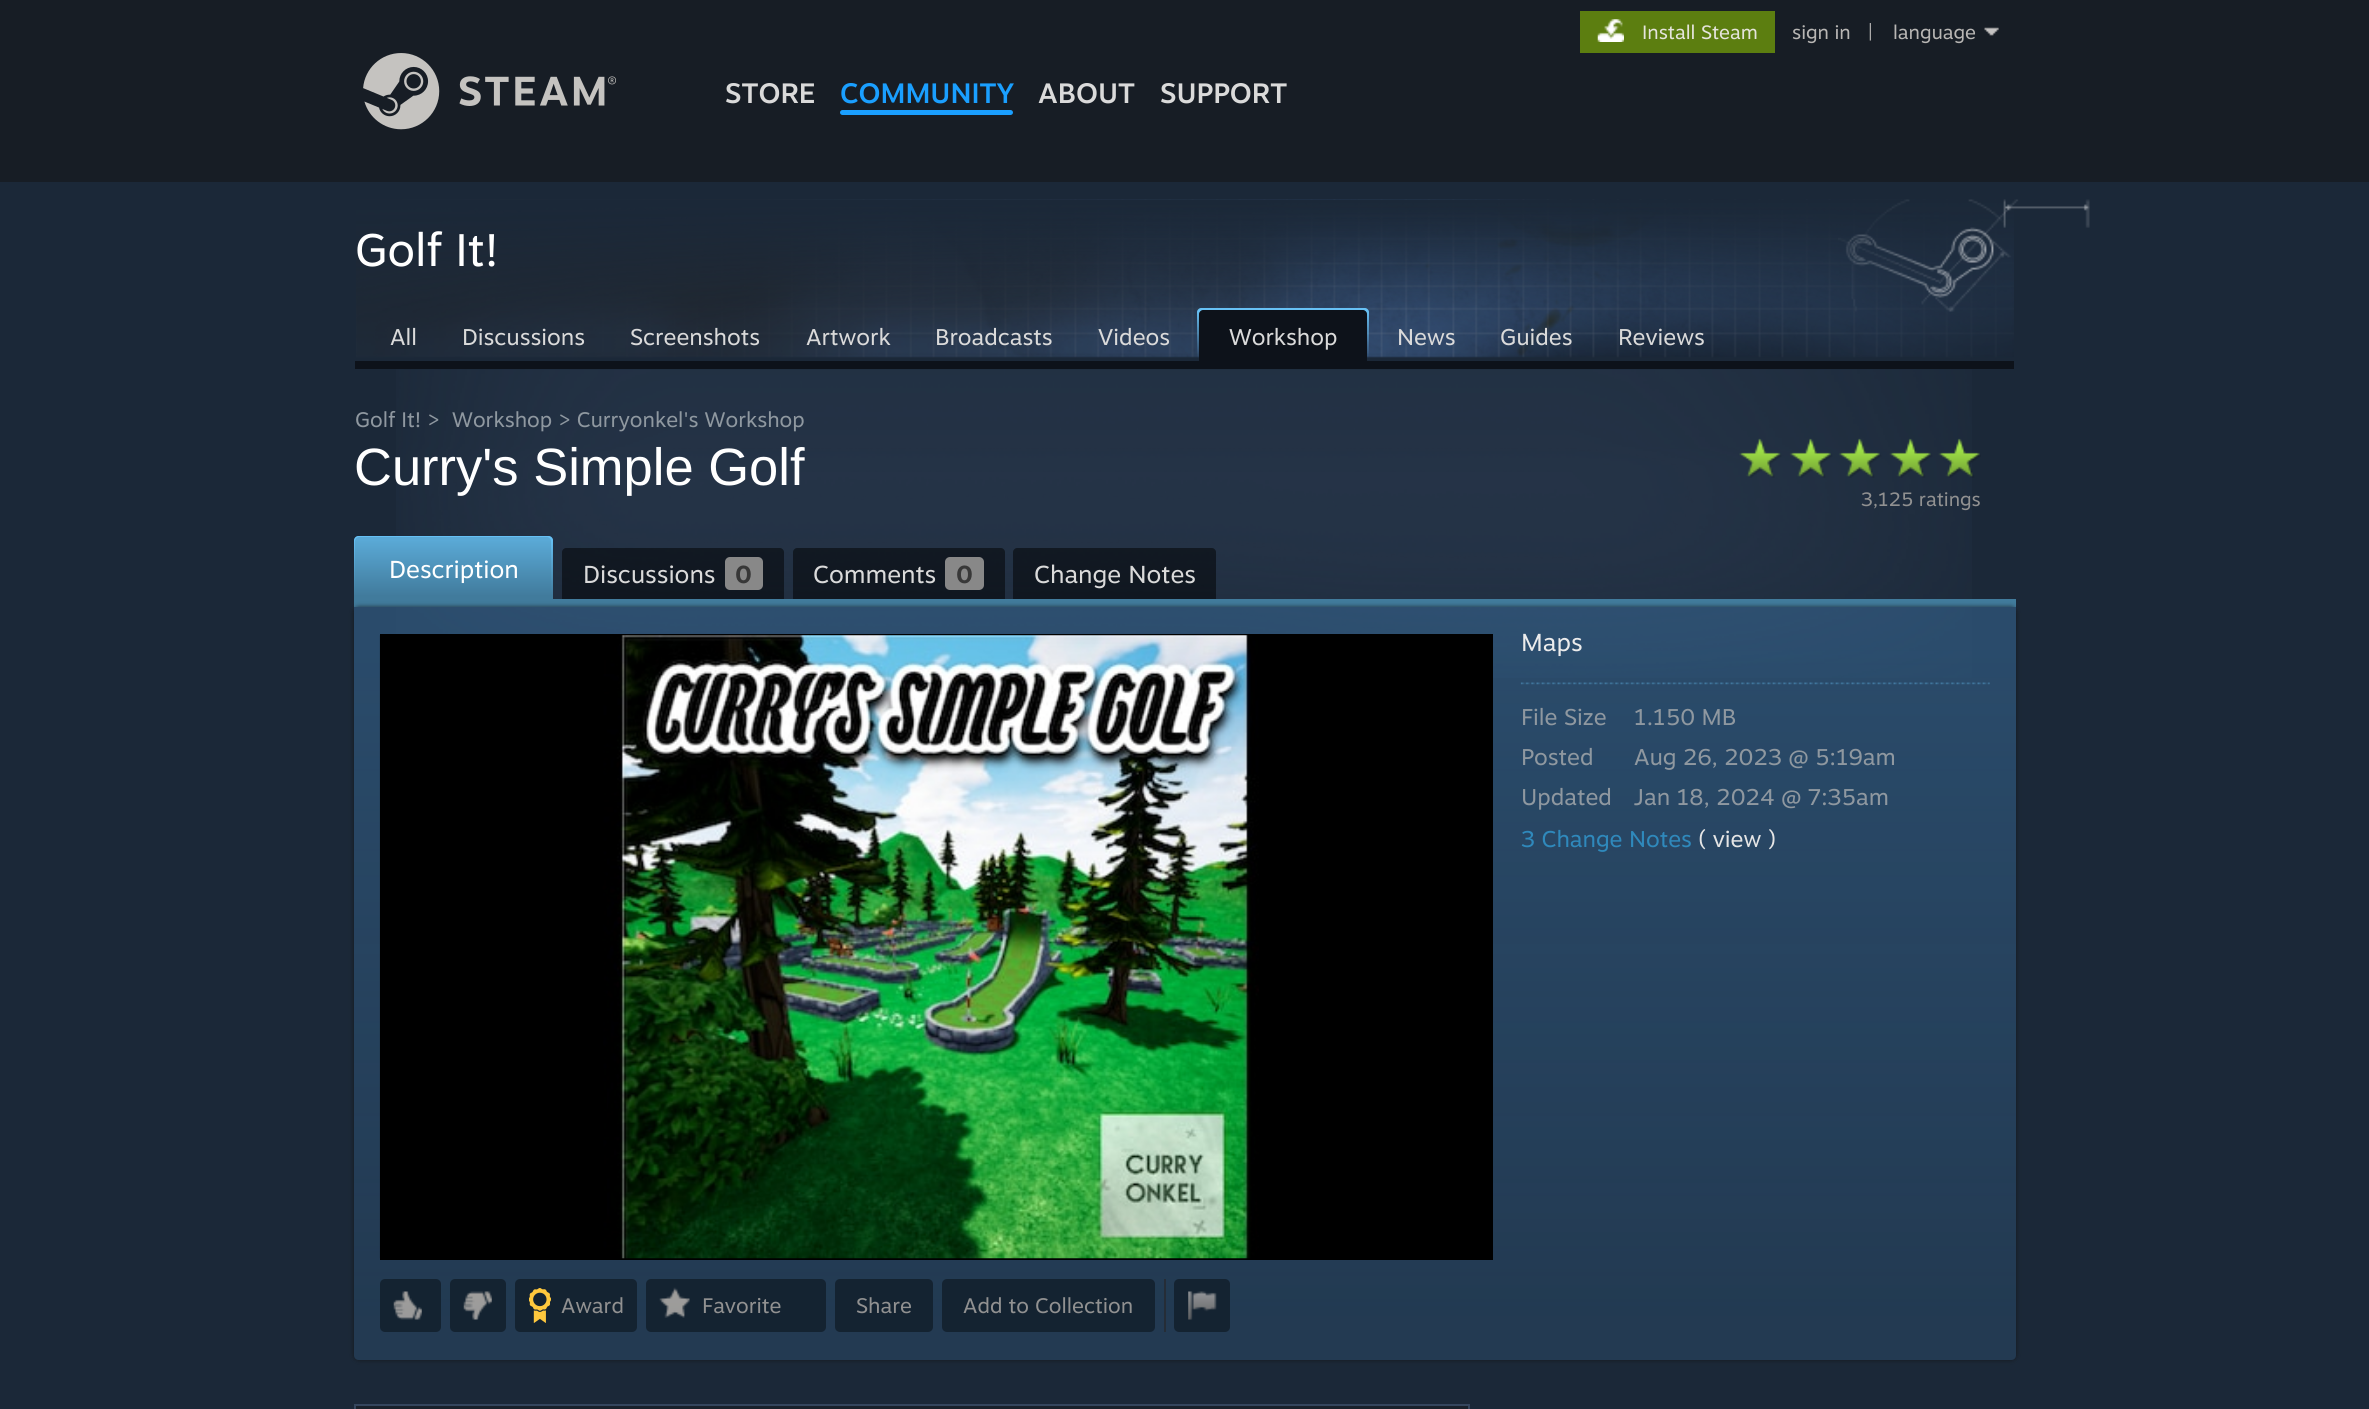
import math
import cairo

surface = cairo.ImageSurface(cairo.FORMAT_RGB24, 2369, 1409)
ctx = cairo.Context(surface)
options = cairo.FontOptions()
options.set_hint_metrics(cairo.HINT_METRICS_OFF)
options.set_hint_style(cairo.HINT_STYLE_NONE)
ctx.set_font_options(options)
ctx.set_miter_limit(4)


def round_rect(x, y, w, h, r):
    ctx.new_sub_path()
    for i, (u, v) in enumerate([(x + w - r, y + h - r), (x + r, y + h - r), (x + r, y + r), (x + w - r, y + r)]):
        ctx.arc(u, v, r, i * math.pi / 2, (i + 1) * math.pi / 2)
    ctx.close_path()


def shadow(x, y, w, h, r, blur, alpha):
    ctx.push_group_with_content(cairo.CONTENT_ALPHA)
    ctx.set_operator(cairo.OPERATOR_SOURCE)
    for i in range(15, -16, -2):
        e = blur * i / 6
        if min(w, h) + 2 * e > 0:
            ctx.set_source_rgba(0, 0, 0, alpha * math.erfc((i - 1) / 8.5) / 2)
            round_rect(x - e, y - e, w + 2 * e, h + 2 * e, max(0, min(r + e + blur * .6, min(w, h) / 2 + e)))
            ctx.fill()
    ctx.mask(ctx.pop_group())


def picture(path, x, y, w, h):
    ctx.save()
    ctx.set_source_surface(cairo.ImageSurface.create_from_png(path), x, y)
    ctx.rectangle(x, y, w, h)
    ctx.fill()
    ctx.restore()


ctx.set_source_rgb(0.106, 0.157, 0.22)
ctx.paint()
ctx.set_source_rgb(0.09, 0.114, 0.145)
ctx.rectangle(0, 0, 2369, 182)
ctx.fill()
ctx.set_source_rgb(0.361, 0.494, 0.063)
ctx.rectangle(1580, 11, 195, 42)
ctx.fill()
picture("img1.png", 1597, 19, 27, 23)
ctx.select_font_face("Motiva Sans")
ctx.set_font_size(19.25)
ctx.set_source_rgb(0.898, 0.894, 0.863)
ctx.move_to(1642, 39)
ctx.show_text("Install Steam")
ctx.set_source_rgb(0.722, 0.714, 0.706)
ctx.move_to(1792, 39)
ctx.show_text("sign in")
ctx.move_to(1868, 39)
ctx.show_text("|")
ctx.move_to(1893, 39)
ctx.show_text("language")
picture("img2.png", 1984, 27, 15, 9)
picture("img3.png", 363, 53, 253, 77)
ctx.select_font_face("Motiva Sans Medium")
ctx.set_font_size(28)
ctx.set_source_rgb(0.855, 0.855, 0.855)
ctx.move_to(725, 103)
ctx.show_text("STORE")
ctx.set_source_rgb(0.102, 0.624, 1)
ctx.move_to(840, 103)
ctx.show_text("COMMUNITY")
round_rect(840, 110, 173, 5, 2.5)
ctx.fill()
ctx.set_source_rgb(0.855, 0.855, 0.855)
ctx.move_to(1038, 103)
ctx.show_text("ABOUT")
ctx.move_to(1160, 103)
ctx.show_text("SUPPORT")
picture("img4.png", 356, 199, 1658, 159)
ctx.select_font_face("Motiva Sans")
ctx.set_font_size(45.5)
ctx.set_source_rgb(1, 1, 1)
ctx.move_to(355, 266)
ctx.show_text("Golf It!")
picture("img5.png", 1838, 199, 252, 113)
ctx.set_font_size(22.75)
ctx.set_source_rgb(0.855, 0.855, 0.855)
ctx.move_to(390, 345)
ctx.show_text("All")
ctx.move_to(462, 345)
ctx.show_text("Discussions")
ctx.move_to(630, 345)
ctx.show_text("Screenshots")
ctx.move_to(806, 345)
ctx.show_text("Artwork")
ctx.move_to(935, 345)
ctx.show_text("Broadcasts")
ctx.move_to(1098, 345)
ctx.show_text("Videos")
gradient = cairo.LinearGradient(1283, 308, 1283, 361)
gradient.add_color_stop_rgba(0.05, 0.404, 0.757, 0.961, 1)
gradient.add_color_stop_rgba(0.95, 0.404, 0.757, 0.961, 0)
ctx.set_source(gradient)
ctx.new_path()
ctx.move_to(1201, 308)
ctx.line_to(1365, 308)
ctx.curve_to(1367, 308, 1369, 310, 1369, 312)
ctx.line_to(1369, 361)
ctx.line_to(1197, 361)
ctx.line_to(1197, 312)
ctx.curve_to(1197, 310, 1199, 308, 1201, 308)
ctx.close_path()
ctx.fill()
ctx.set_source_rgb(0.051, 0.071, 0.102)
ctx.new_path()
ctx.move_to(1203, 310)
ctx.line_to(1363, 310)
ctx.curve_to(1365, 310, 1367, 312, 1367, 314)
ctx.line_to(1367, 361)
ctx.line_to(1199, 361)
ctx.line_to(1199, 314)
ctx.curve_to(1199, 312, 1201, 310, 1203, 310)
ctx.close_path()
ctx.fill()
ctx.set_source_rgb(0.855, 0.855, 0.855)
ctx.move_to(1229, 345)
ctx.show_text("Workshop")
ctx.move_to(1397, 345)
ctx.show_text("News")
ctx.move_to(1500, 345)
ctx.show_text("Guides")
ctx.move_to(1618, 345)
ctx.show_text("Reviews")
ctx.set_source_rgb(0.051, 0.071, 0.102)
ctx.rectangle(355, 361, 1659, 8)
ctx.fill()
picture("img6.png", 396, 369, 1576, 309)
ctx.set_font_size(21)
ctx.set_source_rgb(0.561, 0.596, 0.627)
ctx.move_to(355, 427)
ctx.show_text("Golf It! >")
ctx.move_to(452, 427)
ctx.show_text("Workshop > Curryonkel's Workshop")
ctx.select_font_face("Liberation Sans")
ctx.set_font_size(52.5)
ctx.set_source_rgb(1, 1, 1)
ctx.move_to(354, 485)
ctx.show_text("Curry's Simple Golf")
picture("img7.png", 1739, 438, 242, 40)
ctx.select_font_face("Motiva Sans")
ctx.set_font_size(19.25)
ctx.set_source_rgb(0.569, 0.569, 0.569)
ctx.move_to(1861, 506)
ctx.show_text("3,125 ratings")
ctx.set_source_rgb(0.255, 0.482, 0.612)
ctx.rectangle(354, 599, 1662, 8)
ctx.fill()
ctx.save()
ctx.set_fill_rule(cairo.FILL_RULE_EVEN_ODD)
ctx.new_path()
ctx.move_to(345, 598)
ctx.line_to(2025, 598)
ctx.line_to(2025, 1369)
ctx.line_to(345, 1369)
ctx.close_path()
ctx.move_to(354, 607)
ctx.line_to(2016, 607)
ctx.line_to(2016, 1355)
ctx.curve_to(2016, 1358, 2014, 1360, 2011, 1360)
ctx.line_to(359, 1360)
ctx.curve_to(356, 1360, 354, 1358, 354, 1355)
ctx.close_path()
ctx.clip()
ctx.set_source_rgb(0.078, 0.078, 0.078)
shadow(354, 607, 1662, 753, 5, 2.5, 0.75)
ctx.restore()
gradient = cairo.LinearGradient(453, 536, 453, 599)
gradient.add_color_stop_rgba(0.05, 0.4, 0.753, 0.957, 1)
gradient.add_color_stop_rgba(0.95, 0.255, 0.482, 0.612, 1)
ctx.set_source(gradient)
ctx.new_path()
ctx.move_to(358, 536)
ctx.line_to(549, 536)
ctx.curve_to(551, 536, 553, 538, 553, 540)
ctx.line_to(553, 599)
ctx.line_to(354, 599)
ctx.line_to(354, 540)
ctx.curve_to(354, 538, 356, 536, 358, 536)
ctx.close_path()
ctx.fill()
gradient = cairo.LinearGradient(453, 537, 453, 599)
gradient.add_color_stop_rgba(0.05, 0.353, 0.663, 0.839, 1)
gradient.add_color_stop_rgba(0.95, 0.255, 0.482, 0.612, 1)
ctx.set_source(gradient)
ctx.new_path()
ctx.move_to(359, 537)
ctx.line_to(547, 537)
ctx.curve_to(549, 537, 551, 539, 551, 541)
ctx.line_to(551, 599)
ctx.line_to(355, 599)
ctx.line_to(355, 541)
ctx.curve_to(355, 539, 357, 537, 359, 537)
ctx.close_path()
ctx.fill()
ctx.set_font_size(24.5)
ctx.set_source_rgb(1, 1, 1)
ctx.move_to(389, 578)
ctx.show_text("Description")
ctx.set_source_rgba(0, 0, 0, 0.5)
ctx.new_path()
ctx.move_to(566, 548)
ctx.line_to(780, 548)
ctx.curve_to(782, 548, 784, 550, 784, 552)
ctx.line_to(784, 599)
ctx.line_to(562, 599)
ctx.line_to(562, 552)
ctx.curve_to(562, 550, 564, 548, 566, 548)
ctx.close_path()
ctx.fill()
ctx.set_source_rgb(0.855, 0.855, 0.855)
ctx.move_to(583, 583)
ctx.show_text("Discussions")
ctx.set_source_rgb(0.533, 0.533, 0.533)
round_rect(725, 557, 38, 33, 5)
ctx.fill()
ctx.select_font_face("Motiva Sans", cairo.FONT_SLANT_NORMAL, cairo.FONT_WEIGHT_BOLD)
ctx.set_source_rgb(0.22, 0.22, 0.22)
ctx.move_to(735, 583)
ctx.show_text("0")
ctx.set_source_rgba(0, 0, 0, 0.5)
ctx.new_path()
ctx.move_to(797, 548)
ctx.line_to(1001, 548)
ctx.curve_to(1003, 548, 1005, 550, 1005, 552)
ctx.line_to(1005, 599)
ctx.line_to(793, 599)
ctx.line_to(793, 552)
ctx.curve_to(793, 550, 795, 548, 797, 548)
ctx.close_path()
ctx.fill()
ctx.select_font_face("Motiva Sans")
ctx.set_source_rgb(0.855, 0.855, 0.855)
ctx.move_to(813, 583)
ctx.show_text("Comments")
ctx.set_source_rgb(0.533, 0.533, 0.533)
round_rect(945, 557, 39, 33, 5)
ctx.fill()
ctx.select_font_face("Motiva Sans", cairo.FONT_SLANT_NORMAL, cairo.FONT_WEIGHT_BOLD)
ctx.set_source_rgb(0.22, 0.22, 0.22)
ctx.move_to(956, 583)
ctx.show_text("0")
ctx.set_source_rgba(0, 0, 0, 0.5)
ctx.new_path()
ctx.move_to(1017, 548)
ctx.line_to(1212, 548)
ctx.curve_to(1214, 548, 1216, 550, 1216, 552)
ctx.line_to(1216, 599)
ctx.line_to(1013, 599)
ctx.line_to(1013, 552)
ctx.curve_to(1013, 550, 1015, 548, 1017, 548)
ctx.close_path()
ctx.fill()
ctx.select_font_face("Motiva Sans")
ctx.set_source_rgb(0.855, 0.855, 0.855)
ctx.move_to(1034, 583)
ctx.show_text("Change Notes")
gradient = cairo.LinearGradient(1185, 607, 1185, 1360)
gradient.add_color_stop_rgba(0.05, 0.251, 0.502, 0.718, 0.4)
gradient.add_color_stop_rgba(0.95, 0.251, 0.502, 0.718, 0.2)
ctx.set_source(gradient)
ctx.new_path()
ctx.move_to(354, 607)
ctx.line_to(2016, 607)
ctx.line_to(2016, 1355)
ctx.curve_to(2016, 1358, 2014, 1360, 2011, 1360)
ctx.line_to(359, 1360)
ctx.curve_to(356, 1360, 354, 1358, 354, 1355)
ctx.close_path()
ctx.fill()
ctx.set_source_rgb(0.922, 0.922, 0.922)
ctx.move_to(1521, 651)
ctx.show_text("Maps")
picture("img8.png", 1520, 682, 470, 3)
ctx.set_font_size(22.75)
ctx.set_source_rgb(0.561, 0.596, 0.627)
ctx.move_to(1521, 725)
ctx.show_text("File Size")
ctx.move_to(1521, 765)
ctx.show_text("Posted")
ctx.move_to(1521, 805)
ctx.show_text("Updated")
ctx.move_to(1634, 725)
ctx.show_text("1.150 MB")
ctx.move_to(1634, 765)
ctx.show_text("Aug 26, 2023 @ 5:19am")
ctx.move_to(1634, 805)
ctx.show_text("Jan 18, 2024 @ 7:35am")
ctx.set_source_rgb(0.184, 0.537, 0.737)
ctx.move_to(1521, 847)
ctx.show_text("3 Change Notes")
ctx.set_source_rgb(0.898, 0.898, 0.898)
ctx.move_to(1698, 847)
ctx.show_text("( view )")
ctx.set_source_rgb(0, 0, 0)
ctx.rectangle(380, 634, 1113, 626)
ctx.fill()
picture("img9.png", 379, 635, 880, 624)
ctx.set_source_rgb(0.082, 0.137, 0.192)
round_rect(380, 1279, 61, 53, 5)
ctx.fill()
picture("img10.png", 393, 1291, 29, 29)
round_rect(450, 1279, 56, 53, 5)
ctx.fill()
picture("img11.png", 463, 1291, 29, 29)
round_rect(515, 1279, 122, 53, 5)
ctx.fill()
picture("img12.png", 529, 1288, 22, 35)
ctx.set_font_size(21)
ctx.set_source_rgb(0.569, 0.569, 0.569)
ctx.move_to(561, 1313)
ctx.show_text("Award")
ctx.set_source_rgb(0.082, 0.137, 0.192)
round_rect(646, 1279, 180, 53, 5)
ctx.fill()
picture("img13.png", 659, 1287, 31, 31)
ctx.set_source_rgb(0.569, 0.569, 0.569)
ctx.move_to(702, 1313)
ctx.show_text("Favorite")
ctx.set_source_rgb(0.082, 0.137, 0.192)
round_rect(835, 1279, 98, 53, 5)
ctx.fill()
ctx.set_source_rgb(0.569, 0.569, 0.569)
ctx.move_to(856, 1313)
ctx.show_text("Share")
ctx.set_source_rgb(0.082, 0.137, 0.192)
round_rect(942, 1279, 213, 53, 5)
ctx.fill()
ctx.set_source_rgb(0.569, 0.569, 0.569)
ctx.move_to(963, 1313)
ctx.show_text("Add to Collection")
ctx.set_source_rgb(0.145, 0.176, 0.216)
ctx.rectangle(1164, 1279, 2, 53)
ctx.fill()
ctx.set_source_rgb(0.082, 0.137, 0.192)
round_rect(1174, 1279, 56, 53, 5)
ctx.fill()
picture("img14.png", 1188, 1291, 29, 29)
ctx.set_source_rgb(0.098, 0.129, 0.169)
ctx.rectangle(355, 1405, 1114, 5)
ctx.fill_preserve()
ctx.set_source_rgb(0.208, 0.275, 0.369)
ctx.stroke()
surface.write_to_png("page.png")
